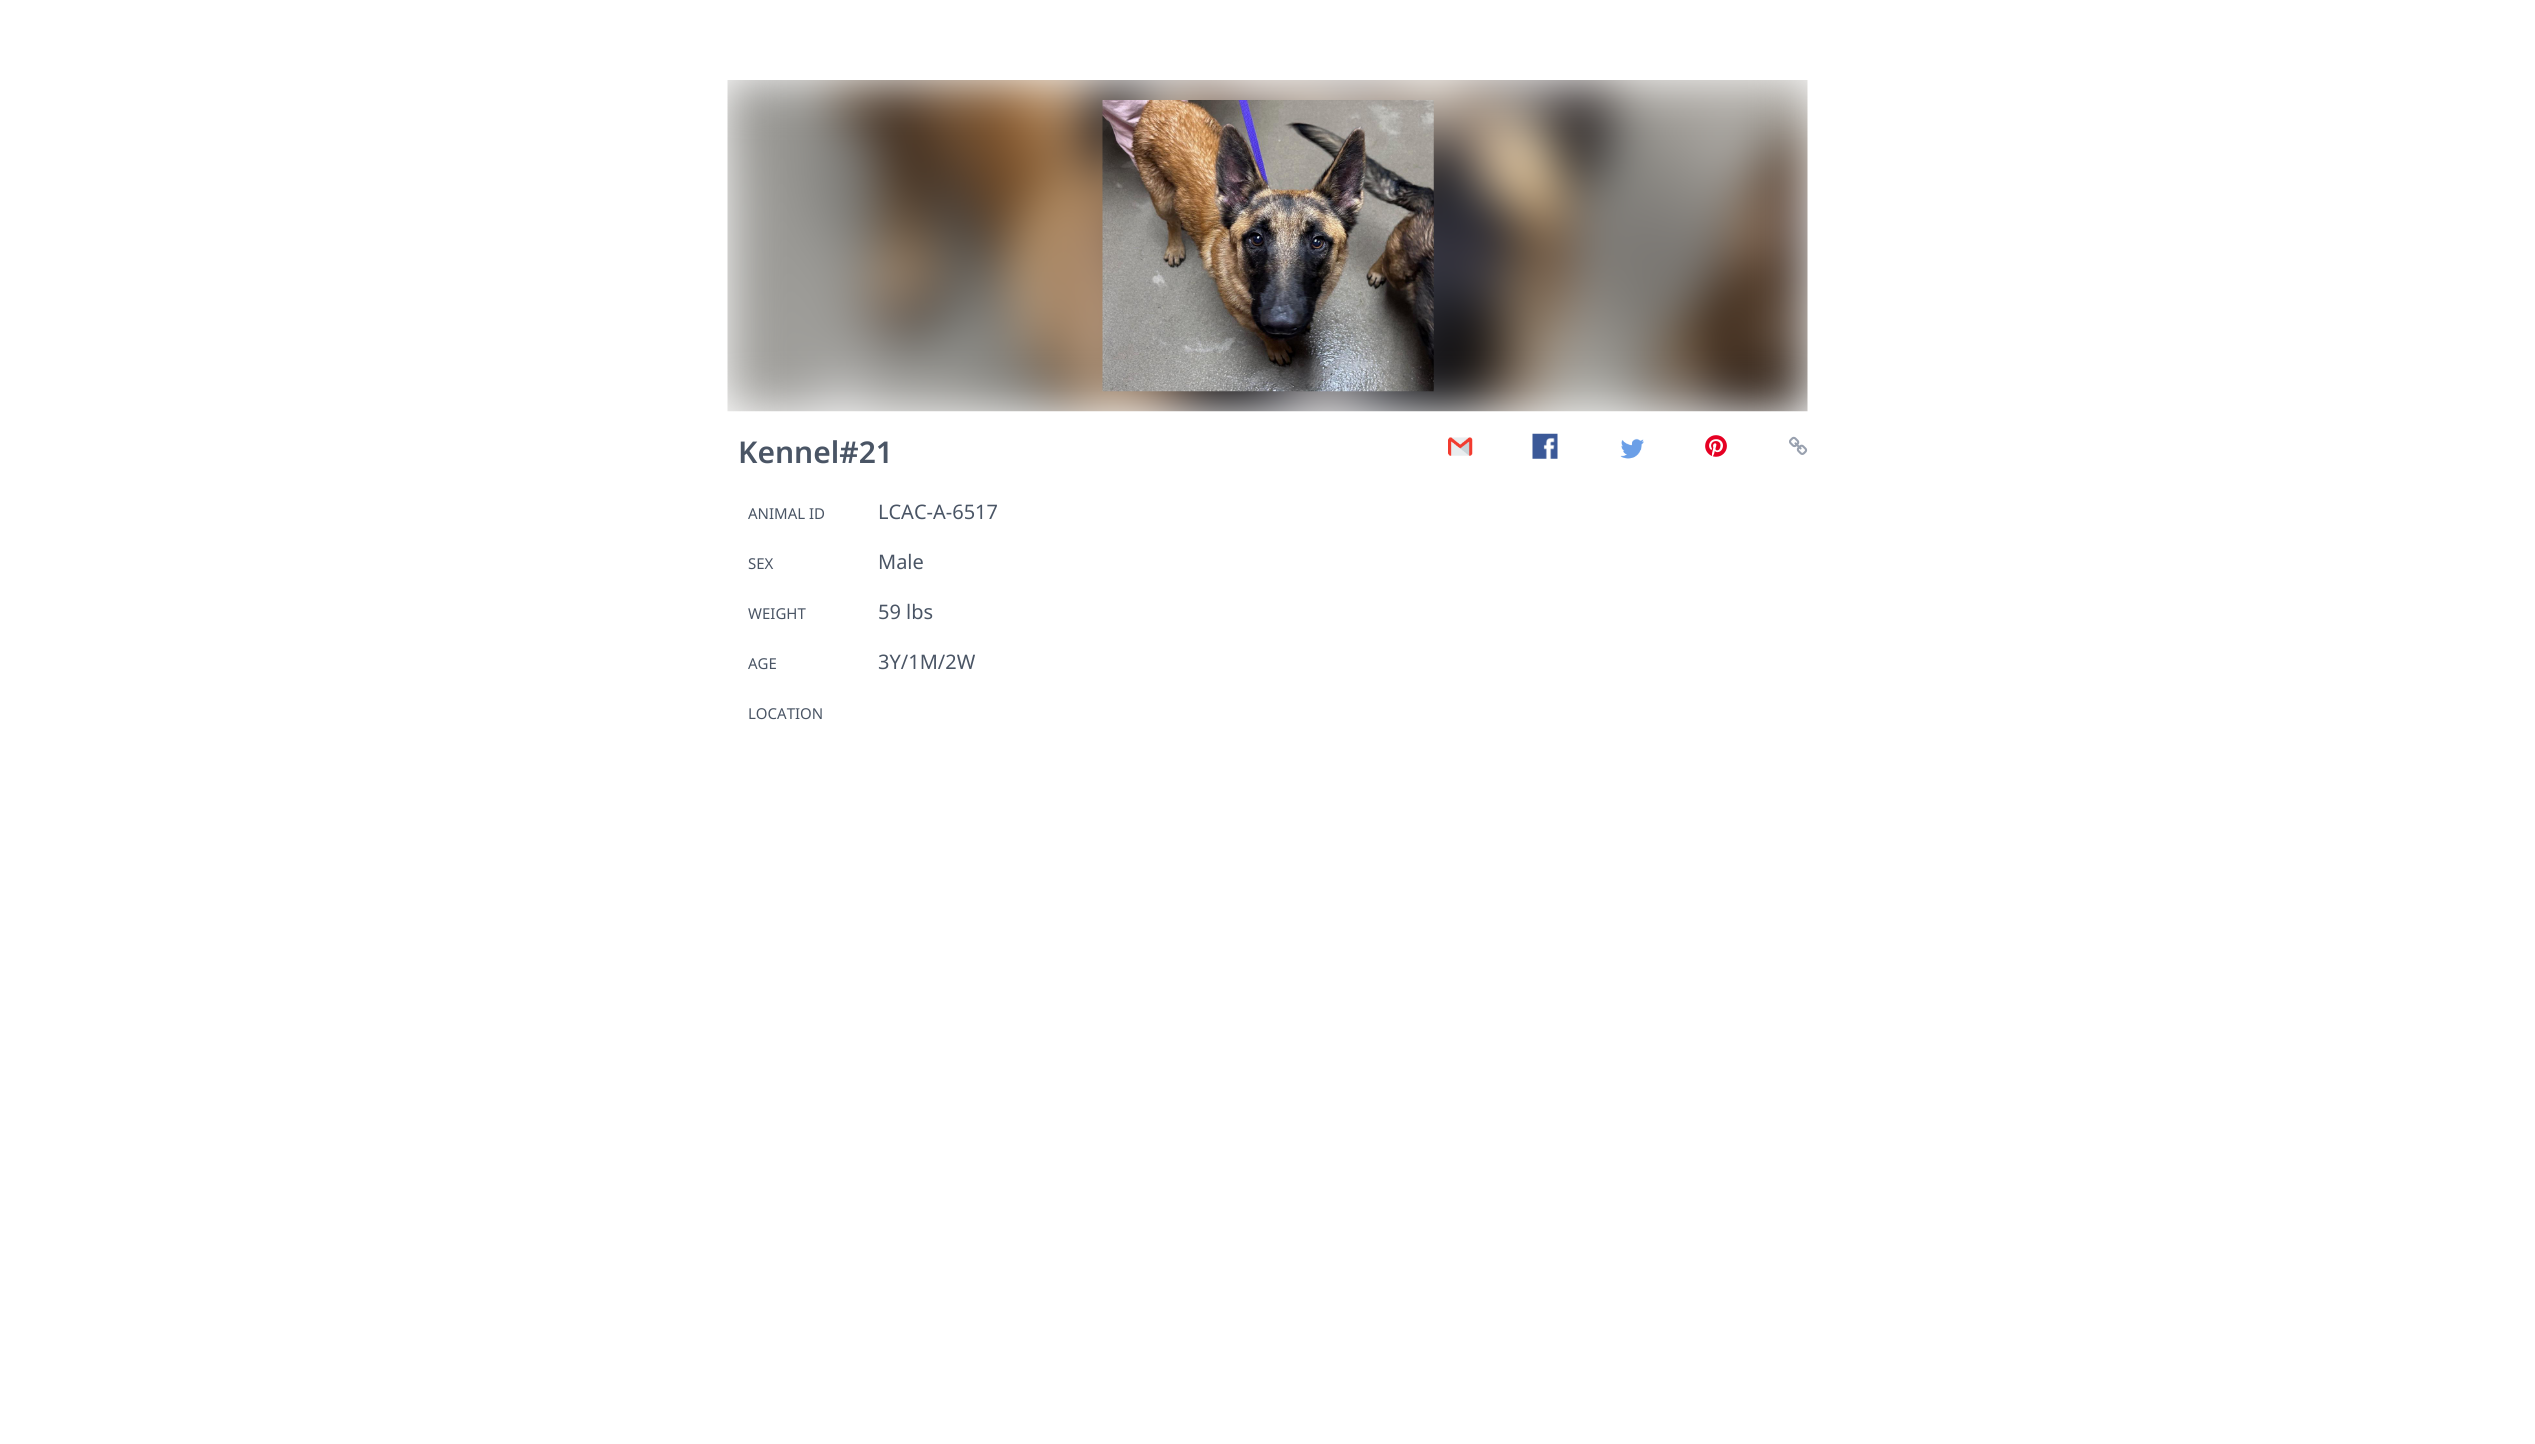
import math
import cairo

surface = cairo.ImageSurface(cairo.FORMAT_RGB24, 2535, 1444)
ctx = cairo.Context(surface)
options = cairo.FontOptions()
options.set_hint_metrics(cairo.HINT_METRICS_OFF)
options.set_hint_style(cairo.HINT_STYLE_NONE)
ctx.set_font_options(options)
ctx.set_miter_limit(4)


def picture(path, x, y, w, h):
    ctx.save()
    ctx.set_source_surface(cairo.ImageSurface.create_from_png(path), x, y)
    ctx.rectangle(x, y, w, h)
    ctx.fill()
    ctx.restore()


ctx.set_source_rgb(1, 1, 1)
ctx.paint()
picture("img1.png", 727, 80, 1081, 332)
picture("img2.png", 1102, 100, 332, 292)
ctx.select_font_face("Noto Sans SemiBold")
ctx.set_font_size(30)
ctx.set_source_rgb(0.29, 0.333, 0.396)
ctx.move_to(738, 463)
ctx.show_text("Kennel#21")
ctx.select_font_face("Noto Sans")
ctx.set_font_size(15)
ctx.move_to(748, 519)
ctx.show_text("ANIMAL ID")
ctx.set_font_size(20)
ctx.move_to(878, 519)
ctx.show_text("LCAC-A-6517")
ctx.set_font_size(15)
ctx.move_to(748, 569)
ctx.show_text("SEX")
ctx.set_font_size(20)
ctx.move_to(878, 569)
ctx.show_text("Male")
ctx.set_font_size(15)
ctx.move_to(748, 619)
ctx.show_text("WEIGHT")
ctx.set_font_size(20)
ctx.move_to(878, 619)
ctx.show_text("59 lbs")
ctx.set_font_size(15)
ctx.move_to(748, 669)
ctx.show_text("AGE")
ctx.set_font_size(20)
ctx.move_to(878, 669)
ctx.show_text("3Y/1M/2W")
ctx.set_font_size(15)
ctx.move_to(748, 719)
ctx.show_text("LOCATION")
picture("img3.png", 1448, 437, 25, 19)
picture("img4.png", 1532, 433, 26, 26)
picture("img5.png", 1620, 438, 24, 21)
picture("img6.png", 1705, 435, 22, 22)
picture("img7.png", 1789, 436, 19, 19)
surface.write_to_png("page.png")
